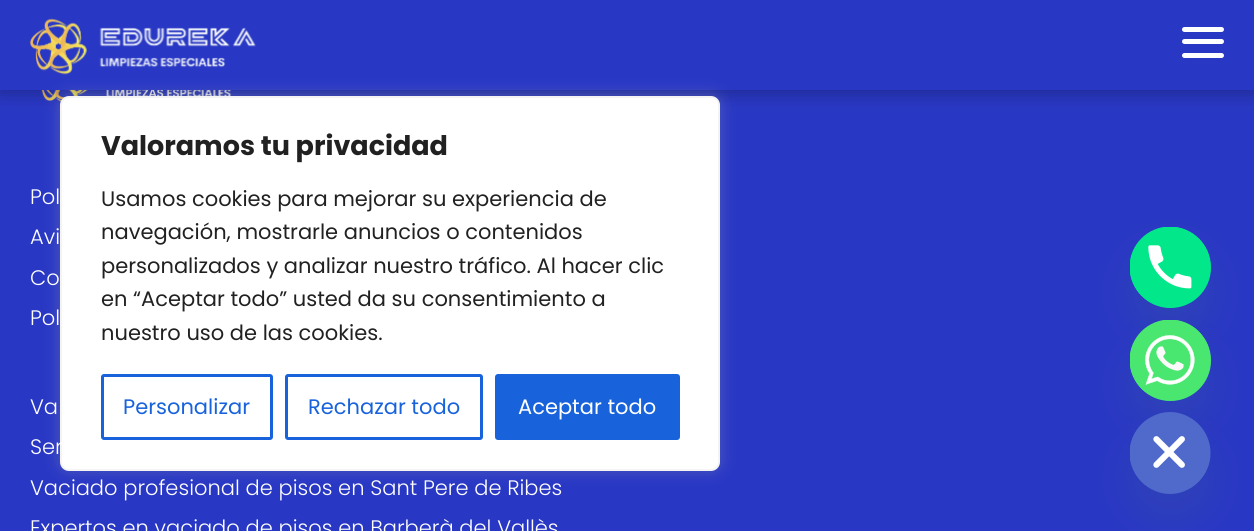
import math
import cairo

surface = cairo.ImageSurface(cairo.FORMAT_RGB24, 1254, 531)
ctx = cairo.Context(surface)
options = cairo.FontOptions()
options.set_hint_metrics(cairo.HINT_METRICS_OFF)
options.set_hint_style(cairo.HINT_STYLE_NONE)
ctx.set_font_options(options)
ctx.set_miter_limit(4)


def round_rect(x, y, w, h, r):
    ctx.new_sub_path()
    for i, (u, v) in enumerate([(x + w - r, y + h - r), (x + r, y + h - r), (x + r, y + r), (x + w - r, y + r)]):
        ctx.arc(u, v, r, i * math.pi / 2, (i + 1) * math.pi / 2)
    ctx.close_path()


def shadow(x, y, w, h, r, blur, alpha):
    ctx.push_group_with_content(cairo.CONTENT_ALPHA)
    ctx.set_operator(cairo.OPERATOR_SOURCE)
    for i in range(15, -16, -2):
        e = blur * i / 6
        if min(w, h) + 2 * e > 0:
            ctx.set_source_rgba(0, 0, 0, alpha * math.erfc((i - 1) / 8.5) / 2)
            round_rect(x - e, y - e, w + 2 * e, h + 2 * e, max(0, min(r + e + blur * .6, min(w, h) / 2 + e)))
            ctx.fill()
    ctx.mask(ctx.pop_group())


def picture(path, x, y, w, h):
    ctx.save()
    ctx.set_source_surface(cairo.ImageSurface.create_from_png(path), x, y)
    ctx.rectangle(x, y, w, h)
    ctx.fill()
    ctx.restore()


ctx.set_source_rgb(0.161, 0.22, 0.769)
ctx.paint()
picture("img2.png", 41, 90, 191, 12)
ctx.set_source_rgb(0, 0, 0)
shadow(0, 2, 1254, 90, 0, 9, 0.3)
ctx.set_source_rgb(0.161, 0.22, 0.769)
ctx.rectangle(0, 0, 1254, 90)
ctx.fill()
picture("img1.png", 30, 18, 226, 57)
ctx.set_source_rgb(1, 1, 1)
round_rect(1182, 27, 42, 5, 2.5)
ctx.fill()
round_rect(1182, 39, 42, 5, 2.5)
ctx.fill()
round_rect(1182, 53, 42, 5, 2.5)
ctx.fill()
ctx.set_source_rgb(0.675, 0.671, 0.671)
shadow(60, 95, 660, 375, 9, 7.5, 0.3)
ctx.set_source_rgb(1, 1, 1)
round_rect(61, 97, 658, 373, 8)
ctx.fill_preserve()
ctx.set_source_rgb(0.957, 0.957, 0.957)
ctx.stroke()
ctx.select_font_face("Poppins", cairo.FONT_SLANT_NORMAL, cairo.FONT_WEIGHT_BOLD)
ctx.set_font_size(27)
ctx.set_source_rgb(0.129, 0.129, 0.129)
ctx.move_to(101, 155)
ctx.show_text("Valoramos tu privacidad")
ctx.select_font_face("Poppins")
ctx.set_font_size(21)
ctx.move_to(101, 206)
ctx.show_text("Usamos cookies para mejorar su experiencia de")
ctx.move_to(101, 239)
ctx.show_text("navegación, mostrarle anuncios o contenidos")
ctx.move_to(101, 273)
ctx.show_text("personalizados y analizar nuestro tráfico. Al hacer clic")
ctx.move_to(101, 306)
ctx.show_text("en “Aceptar todo” usted da su consentimiento a")
ctx.move_to(101, 340)
ctx.show_text("nuestro uso de las cookies.")
round_rect(102.5, 375.5, 169, 63, 1.5)
ctx.set_source_rgb(0.094, 0.388, 0.863)
ctx.set_line_width(3)
ctx.stroke()
ctx.move_to(123, 414)
ctx.show_text("Personalizar")
round_rect(286.5, 375.5, 195, 63, 1.5)
ctx.stroke()
ctx.move_to(308, 414)
ctx.show_text("Rechazar todo")
round_rect(496.5, 375.5, 182, 63, 1.5)
ctx.fill_preserve()
ctx.stroke()
ctx.set_source_rgb(1, 1, 1)
ctx.move_to(518, 414)
ctx.show_text("Aceptar todo")
ctx.select_font_face("Poppins Light")
ctx.move_to(30, 204)
ctx.show_text("Pol")
ctx.move_to(30, 244)
ctx.show_text("Avi")
ctx.move_to(30, 285)
ctx.show_text("Co")
ctx.move_to(30, 325)
ctx.show_text("Pol")
ctx.move_to(30, 414)
ctx.show_text("Va")
ctx.move_to(30, 454)
ctx.show_text("Ser")
ctx.move_to(30, 495)
ctx.show_text("Vaciado profesional de pisos en Sant Pere de Ribes")
ctx.move_to(30, 535)
ctx.show_text("Expertos en vaciado de pisos en Barberà del Vallès")
ctx.set_source_rgb(0.286, 0.408, 0.494)
shadow(1130, 251, 81, 81, 40.5, 18, 0.16)
ctx.set_source_rgb(0.012, 0.906, 0.545)
ctx.arc(1170.5, 267.5, 40.5, 0, 2 * math.pi)
ctx.fill()
picture("img3.png", 1130, 227, 81, 81)
ctx.set_source_rgb(0.286, 0.408, 0.494)
shadow(1130, 344, 81, 81, 40.5, 18, 0.16)
ctx.set_source_rgb(0.286, 0.902, 0.439)
ctx.arc(1170.5, 360.5, 40.5, 0, 2 * math.pi)
ctx.fill()
picture("img4.png", 1130, 320, 81, 81)
ctx.set_source_rgb(0.286, 0.408, 0.494)
shadow(1130, 437, 81, 81, 40.5, 18, 0.16)
ctx.set_source_rgb(0.31, 0.416, 0.792)
ctx.new_path()
ctx.move_to(1170, 494)
ctx.curve_to(1148, 494, 1130, 475, 1130, 453)
ctx.curve_to(1130, 431, 1148, 412, 1170, 412)
ctx.curve_to(1192, 412, 1210, 431, 1210, 453)
ctx.curve_to(1210, 475, 1192, 494, 1170, 494)
ctx.close_path()
ctx.fill()
picture("img5.png", 1130, 418, 81, 70)
surface.write_to_png("page.png")
